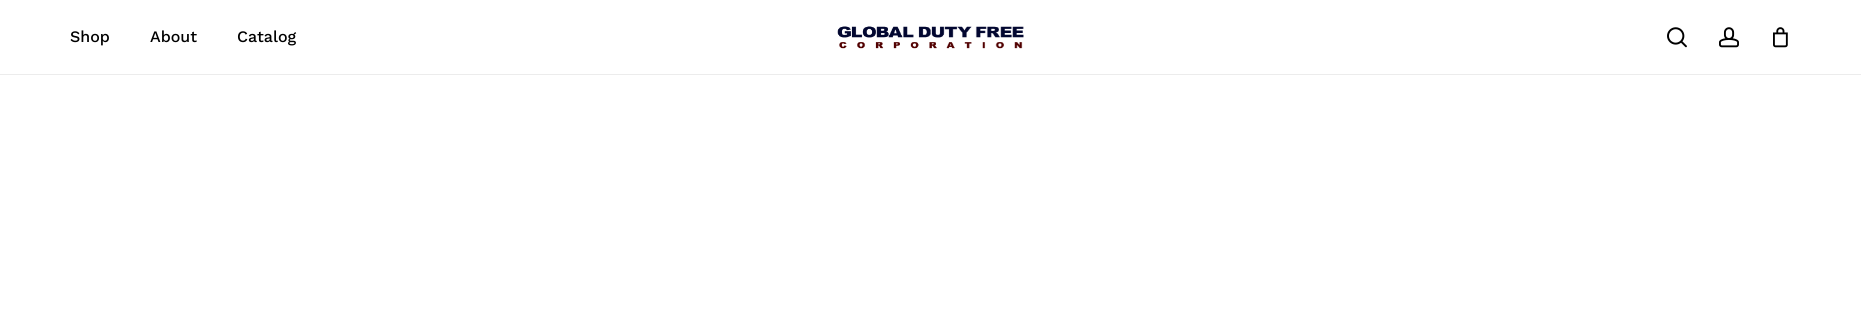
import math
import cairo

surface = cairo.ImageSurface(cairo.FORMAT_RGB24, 1861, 325)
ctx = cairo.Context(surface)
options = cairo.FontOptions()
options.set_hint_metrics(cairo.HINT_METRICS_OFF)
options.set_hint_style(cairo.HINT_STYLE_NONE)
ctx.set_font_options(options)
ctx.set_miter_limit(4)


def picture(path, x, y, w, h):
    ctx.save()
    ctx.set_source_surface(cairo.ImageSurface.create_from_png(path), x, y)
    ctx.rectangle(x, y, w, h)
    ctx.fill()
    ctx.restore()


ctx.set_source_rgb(1, 1, 1)
ctx.paint()
ctx.set_source_rgb(0.922, 0.922, 0.922)
ctx.rectangle(0, 74, 1861, 1)
ctx.fill()
ctx.select_font_face("Work Sans Medium")
ctx.set_font_size(16)
ctx.set_source_rgb(0, 0, 0)
ctx.move_to(70, 42)
ctx.show_text("Shop")
ctx.move_to(150, 42)
ctx.show_text("About")
ctx.move_to(237, 42)
ctx.show_text("Catalog")
picture("img1.png", 837, 26, 187, 23)
picture("img2.png", 1667, 27, 20, 21)
picture("img3.png", 1719, 27, 20, 21)
picture("img4.png", 1773, 27, 15, 21)
surface.write_to_png("page.png")
